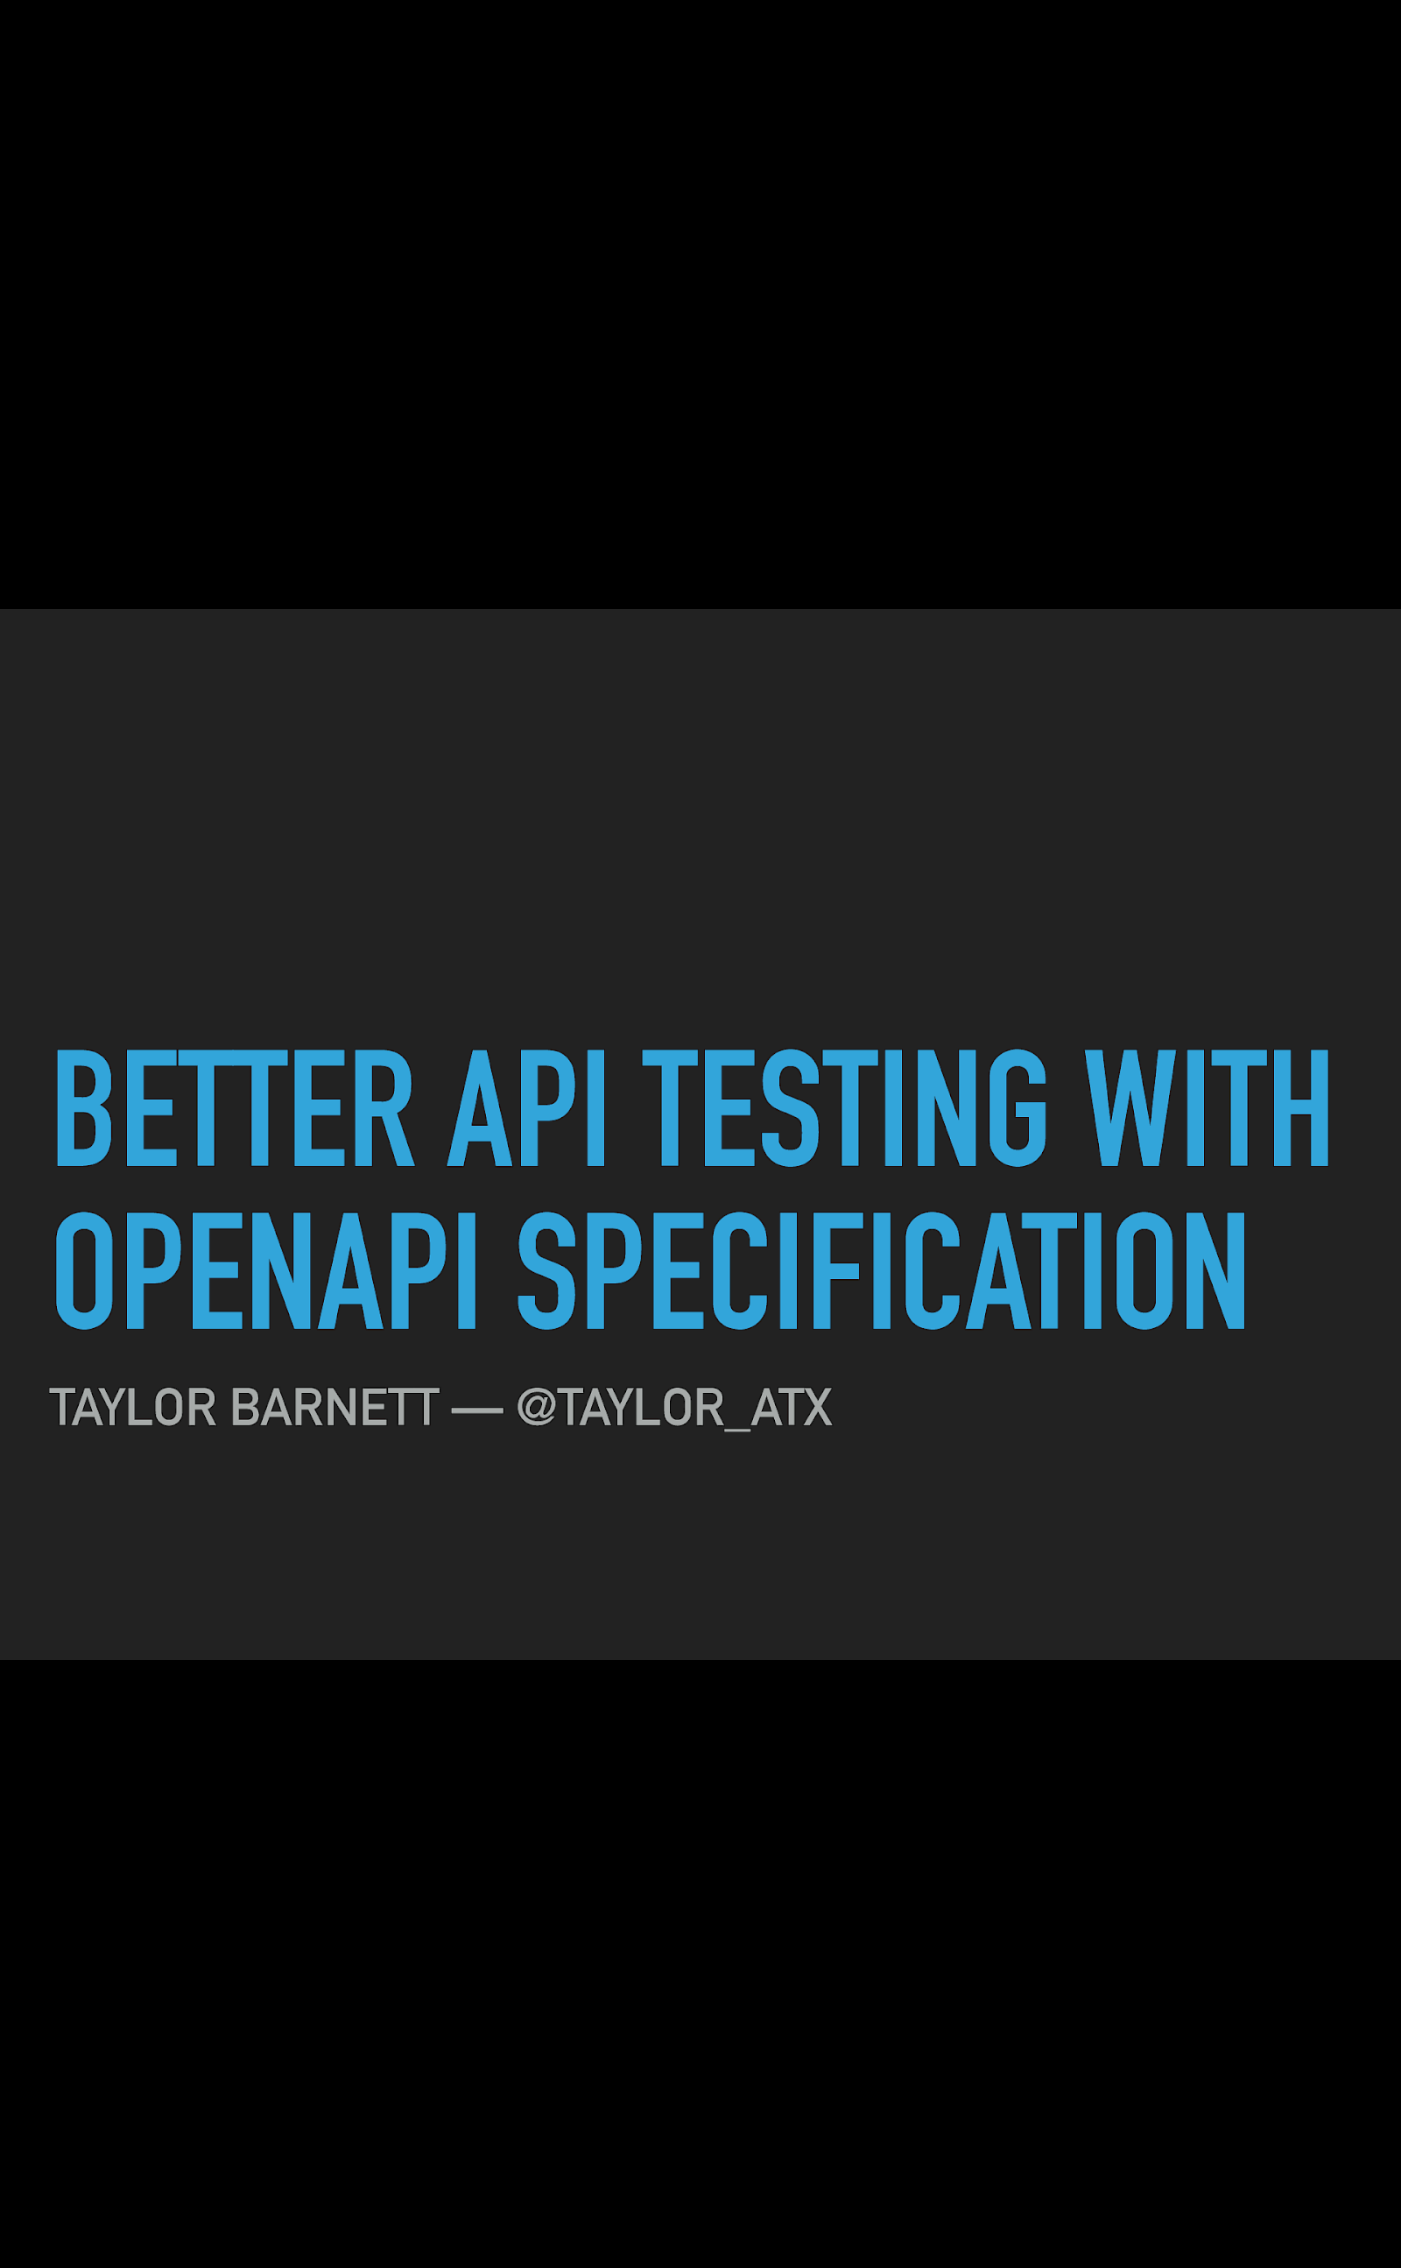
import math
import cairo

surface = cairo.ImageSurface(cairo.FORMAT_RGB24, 1401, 2268)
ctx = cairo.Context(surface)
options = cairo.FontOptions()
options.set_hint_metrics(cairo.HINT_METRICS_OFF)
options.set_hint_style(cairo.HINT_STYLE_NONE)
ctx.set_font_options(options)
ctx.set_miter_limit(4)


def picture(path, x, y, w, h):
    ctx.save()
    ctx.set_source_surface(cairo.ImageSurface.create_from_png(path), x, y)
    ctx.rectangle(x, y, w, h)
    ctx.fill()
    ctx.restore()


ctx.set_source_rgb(0, 0, 0)
ctx.paint()
picture("img1.png", 0, 609, 1401, 1051)
surface.write_to_png("page.png")
